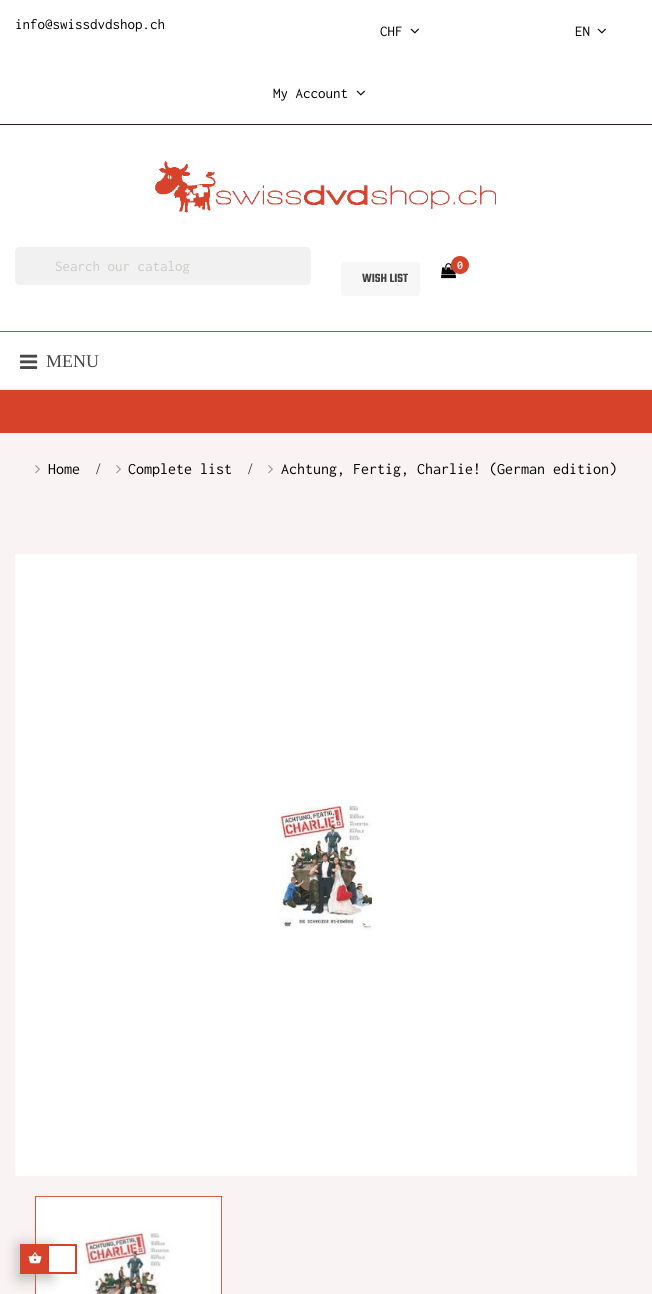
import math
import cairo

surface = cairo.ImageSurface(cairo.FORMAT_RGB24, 652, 1294)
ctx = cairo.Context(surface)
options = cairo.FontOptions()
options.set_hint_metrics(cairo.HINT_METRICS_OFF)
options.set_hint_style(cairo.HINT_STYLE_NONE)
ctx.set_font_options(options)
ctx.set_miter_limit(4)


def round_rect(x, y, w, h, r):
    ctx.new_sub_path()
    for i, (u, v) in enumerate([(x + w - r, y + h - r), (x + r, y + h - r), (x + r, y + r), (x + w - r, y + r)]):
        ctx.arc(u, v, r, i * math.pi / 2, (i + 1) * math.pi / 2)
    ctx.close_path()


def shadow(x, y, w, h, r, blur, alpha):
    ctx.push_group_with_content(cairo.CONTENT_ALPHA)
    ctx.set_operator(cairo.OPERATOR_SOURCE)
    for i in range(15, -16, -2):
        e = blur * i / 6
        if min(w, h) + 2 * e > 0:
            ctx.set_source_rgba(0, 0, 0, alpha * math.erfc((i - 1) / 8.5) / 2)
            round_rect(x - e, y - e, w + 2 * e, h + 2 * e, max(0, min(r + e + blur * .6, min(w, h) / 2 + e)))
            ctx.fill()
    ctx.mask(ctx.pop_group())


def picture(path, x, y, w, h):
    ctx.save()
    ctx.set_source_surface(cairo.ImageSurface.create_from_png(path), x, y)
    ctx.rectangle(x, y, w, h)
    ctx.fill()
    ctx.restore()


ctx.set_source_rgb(0.973, 0.953, 0.953)
ctx.paint()
ctx.set_source_rgb(1, 1, 1)
ctx.rectangle(0, 0, 652, 389)
ctx.fill()
ctx.select_font_face("Inconsolata")
ctx.set_font_size(15)
ctx.set_source_rgb(0, 0, 0)
ctx.move_to(15, 29)
ctx.show_text("info@swissdvdshop.ch")
ctx.move_to(380, 36)
ctx.show_text("CHF")
picture("img1.png", 410, 28, 9, 6)
ctx.move_to(575, 36)
ctx.show_text("EN")
picture("img1.png", 597, 28, 9, 6)
ctx.move_to(273, 98)
ctx.show_text("My Account")
picture("img1.png", 356, 90, 9, 6)
ctx.set_source_rgb(0.161, 0.106, 0.106)
ctx.rectangle(0, 124, 652, 1)
ctx.fill()
picture("img2.png", 155, 161, 341, 52)
ctx.set_source_rgb(0.945, 0.945, 0.945)
round_rect(15, 247, 296, 38, 5)
ctx.fill()
ctx.set_source_rgb(0.8, 0.796, 0.788)
ctx.move_to(55, 271)
ctx.show_text("Search our catalog")
picture("img3.png", 441, 263, 15, 16)
ctx.set_source_rgb(0.843, 0.259, 0.169)
ctx.arc(460, 265, 9, 0, 2 * math.pi)
ctx.fill()
ctx.select_font_face("Inconsolata", cairo.FONT_SLANT_NORMAL, cairo.FONT_WEIGHT_BOLD)
ctx.set_font_size(12)
ctx.set_source_rgb(1, 1, 1)
ctx.move_to(457, 269)
ctx.show_text("0")
ctx.set_source_rgb(0.965, 0.965, 0.965)
round_rect(341, 262, 79, 34, 3)
ctx.fill()
ctx.select_font_face("Teko SemiBold")
ctx.set_font_size(13)
ctx.set_source_rgb(0.255, 0.255, 0.255)
ctx.move_to(362, 282)
ctx.show_text("WISH LIST")
ctx.set_source_rgb(0.843, 0.259, 0.169)
ctx.rectangle(0, 331, 652, 1)
ctx.fill()
ctx.set_source_rgb(0.914, 0.914, 0.914)
ctx.rectangle(0, 389, 652, 1)
ctx.fill()
picture("img4.png", 20, 354, 18, 15)
ctx.select_font_face("Liberation Serif")
ctx.set_font_size(18)
ctx.set_source_rgb(0.282, 0.282, 0.282)
ctx.move_to(46, 367)
ctx.show_text("MENU")
ctx.set_source_rgb(0.843, 0.259, 0.169)
ctx.rectangle(0, 390, 652, 43)
ctx.fill()
picture("img5.png", 35, 465, 5, 9)
ctx.select_font_face("Inconsolata")
ctx.set_font_size(16)
ctx.set_source_rgb(0, 0, 0)
ctx.move_to(48, 474)
ctx.show_text("Home")
ctx.select_font_face("Liberation Serif")
ctx.set_source_rgb(0.153, 0.153, 0.153)
ctx.move_to(96, 474)
ctx.show_text("/")
picture("img5.png", 116, 465, 5, 9)
ctx.select_font_face("Inconsolata")
ctx.set_source_rgb(0, 0, 0)
ctx.move_to(128, 474)
ctx.show_text("Complete list")
ctx.select_font_face("Liberation Serif")
ctx.set_source_rgb(0.153, 0.153, 0.153)
ctx.move_to(248, 474)
ctx.show_text("/")
picture("img5.png", 268, 465, 5, 9)
ctx.select_font_face("Inconsolata")
ctx.set_source_rgb(0, 0, 0)
ctx.move_to(281, 474)
ctx.show_text("Achtung, Fertig, Charlie! (German edition)")
ctx.set_source_rgb(1, 1, 1)
ctx.rectangle(15, 554, 622, 622)
ctx.fill()
picture("img6.png", 276, 802, 99, 128)
ctx.rectangle(35.5, 1196.5, 186, 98)
ctx.set_source_rgb(0.843, 0.259, 0.169)
ctx.set_line_width(1)
ctx.stroke()
picture("img7.png", 35, 1196, 187, 98)
ctx.set_source_rgb(0.557, 0.537, 0.51)
shadow(19, 1246, 32, 32, 0, 7.5, 0.62)
ctx.set_source_rgb(0.843, 0.259, 0.169)
ctx.rectangle(20, 1244, 27, 30)
ctx.fill()
picture("img8.png", 28, 1252, 14, 12)
ctx.set_source_rgb(1, 1, 1)
ctx.rectangle(49, 1246, 16, 26)
ctx.fill()
ctx.rectangle(48, 1245, 28, 28)
ctx.set_source_rgb(0.843, 0.259, 0.169)
ctx.set_line_width(2)
ctx.stroke()
surface.write_to_png("page.png")
